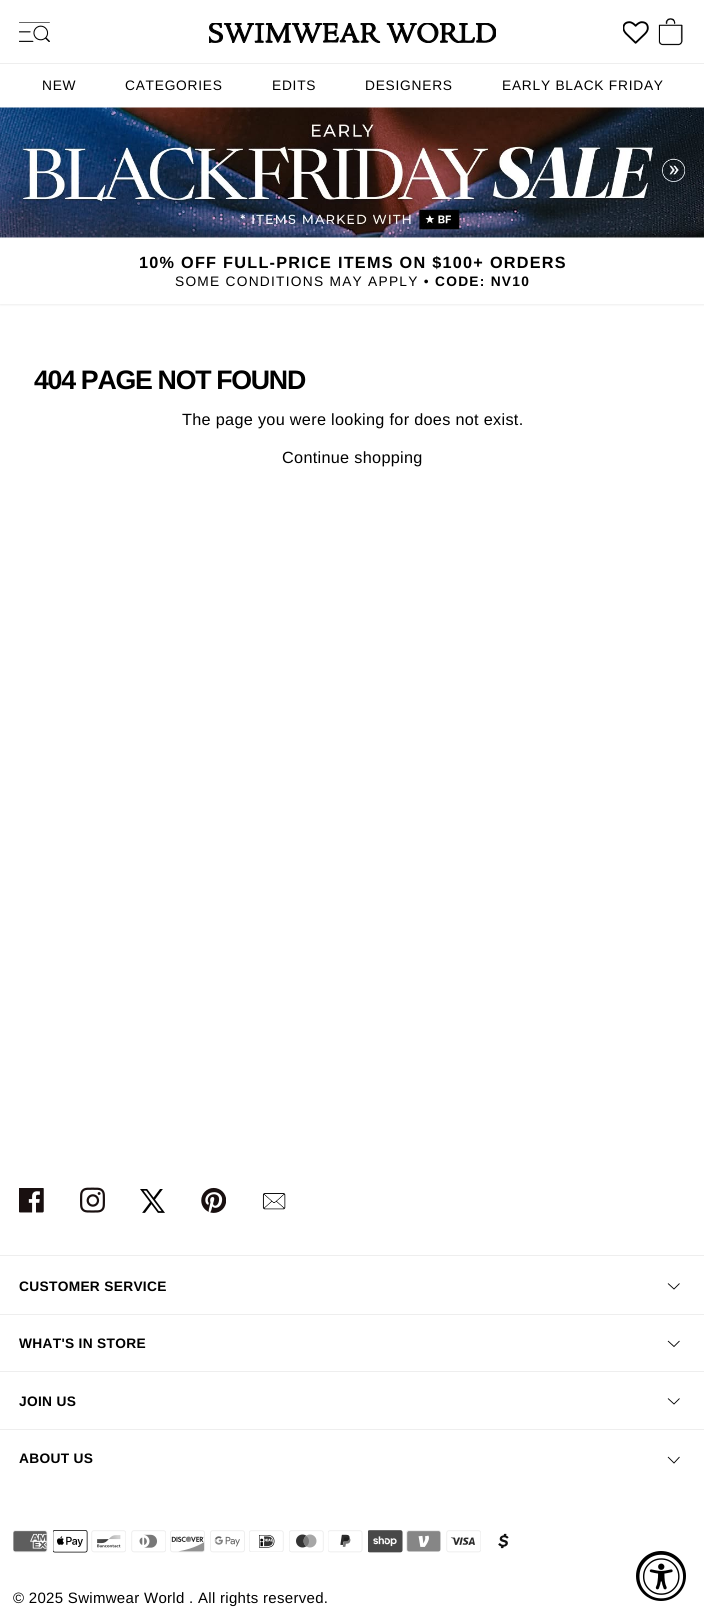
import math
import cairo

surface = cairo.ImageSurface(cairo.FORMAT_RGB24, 704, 1619)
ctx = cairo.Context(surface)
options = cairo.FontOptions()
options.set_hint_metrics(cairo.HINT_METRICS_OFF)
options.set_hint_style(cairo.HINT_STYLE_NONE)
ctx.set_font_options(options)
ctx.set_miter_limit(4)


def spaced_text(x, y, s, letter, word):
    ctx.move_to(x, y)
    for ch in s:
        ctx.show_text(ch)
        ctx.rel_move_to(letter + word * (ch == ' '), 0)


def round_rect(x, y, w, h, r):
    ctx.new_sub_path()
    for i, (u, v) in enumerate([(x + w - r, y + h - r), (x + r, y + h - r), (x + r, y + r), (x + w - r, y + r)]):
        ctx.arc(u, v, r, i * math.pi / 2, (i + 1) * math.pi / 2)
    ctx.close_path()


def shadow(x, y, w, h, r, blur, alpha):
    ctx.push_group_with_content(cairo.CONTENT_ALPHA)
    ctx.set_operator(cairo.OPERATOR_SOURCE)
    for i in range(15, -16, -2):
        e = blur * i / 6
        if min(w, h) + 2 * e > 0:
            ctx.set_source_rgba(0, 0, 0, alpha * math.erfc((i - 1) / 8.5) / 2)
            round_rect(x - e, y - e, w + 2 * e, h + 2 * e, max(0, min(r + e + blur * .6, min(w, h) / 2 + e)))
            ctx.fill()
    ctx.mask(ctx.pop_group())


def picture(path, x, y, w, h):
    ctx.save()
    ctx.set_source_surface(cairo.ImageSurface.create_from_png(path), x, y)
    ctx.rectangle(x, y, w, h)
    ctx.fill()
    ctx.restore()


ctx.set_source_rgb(1, 1, 1)
ctx.paint()
ctx.set_source_rgb(0.933, 0.933, 0.933)
ctx.rectangle(0, 63, 704, 1)
ctx.fill()
picture("img1.png", 19, 22, 31, 20)
picture("img2.png", 209, 23, 287, 20)
picture("img3.png", 623, 21, 26, 23)
picture("img4.png", 658, 18, 25, 28)
ctx.select_font_face("Liberation Sans")
ctx.set_font_size(13.75)
ctx.set_source_rgb(0, 0, 0)
spaced_text(42, 90, "NEW", 0.75, 0)
spaced_text(125, 90, "CATEGORIES", 0.75, 0)
spaced_text(272, 90, "EDITS", 0.75, 0)
spaced_text(365, 90, "DESIGNERS", 0.75, 0)
spaced_text(502, 90, "EARLY BLACK FRIDAY", 0.75, 0)
ctx.save()
ctx.set_fill_rule(cairo.FILL_RULE_EVEN_ODD)
ctx.new_path()
ctx.move_to(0, 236)
ctx.line_to(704, 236)
ctx.line_to(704, 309)
ctx.line_to(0, 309)
ctx.close_path()
ctx.move_to(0, 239)
ctx.line_to(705, 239)
ctx.line_to(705, 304)
ctx.line_to(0, 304)
ctx.close_path()
ctx.clip()
ctx.set_source_rgb(0.933, 0.933, 0.933)
shadow(0, 240, 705, 65, 0, 1, 1)
ctx.restore()
picture("img5.png", 0, 107, 704, 131)
ctx.select_font_face("Liberation Sans", cairo.FONT_SLANT_NORMAL, cairo.FONT_WEIGHT_BOLD)
ctx.set_font_size(16.25)
spaced_text(139, 268, "10% OFF FULL-PRICE ITEMS ON $100+ ORDERS", 1.25, 0)
ctx.select_font_face("Liberation Sans")
ctx.set_font_size(13.75)
spaced_text(175, 286, "SOME CONDITIONS MAY APPLY •", 1.25, 0)
ctx.select_font_face("Liberation Sans", cairo.FONT_SLANT_NORMAL, cairo.FONT_WEIGHT_BOLD)
spaced_text(435, 286, "CODE: NV10", 1.25, 0)
ctx.set_font_size(26.75)
spaced_text(34, 389, "404 PAGE NOT FOUND", -1.3, 0)
ctx.select_font_face("Liberation Sans")
ctx.set_font_size(16.25)
spaced_text(182, 425, "The page you were looking for does not exist.", 0.3, 0)
spaced_text(282, 463, "Continue shopping", 0.3, 0)
picture("img6.png", 19, 1188, 25, 25)
picture("img7.png", 80, 1187, 25, 26)
picture("img8.png", 140, 1189, 25, 24)
picture("img9.png", 201, 1187, 25, 26)
picture("img10.png", 262, 1193, 24, 17)
ctx.set_source_rgb(0.933, 0.933, 0.933)
ctx.rectangle(0, 1255, 704, 1)
ctx.fill()
ctx.select_font_face("Liberation Sans", cairo.FONT_SLANT_NORMAL, cairo.FONT_WEIGHT_BOLD)
ctx.set_font_size(13.75)
ctx.set_source_rgb(0, 0, 0)
spaced_text(19, 1291, "CUSTOMER SERVICE", 0.3, 0)
ctx.new_path()
ctx.move_to(668, 1283.5)
ctx.line_to(674, 1289)
ctx.line_to(679.5, 1283.5)
ctx.set_line_width(0.9)
ctx.stroke()
ctx.set_source_rgb(0.933, 0.933, 0.933)
ctx.rectangle(0, 1314, 704, 1)
ctx.fill()
ctx.set_source_rgb(0, 0, 0)
spaced_text(19, 1348, "WHAT'S IN STORE", 0.3, 0)
ctx.new_path()
ctx.move_to(668, 1341)
ctx.line_to(674, 1346.5)
ctx.line_to(679.5, 1341)
ctx.stroke()
ctx.set_source_rgb(0.933, 0.933, 0.933)
ctx.rectangle(0, 1371, 704, 1)
ctx.fill()
ctx.set_source_rgb(0, 0, 0)
spaced_text(19, 1406, "JOIN US", 0.3, 0)
ctx.new_path()
ctx.move_to(668, 1398.5)
ctx.line_to(674, 1404)
ctx.line_to(679.5, 1398.5)
ctx.stroke()
ctx.set_source_rgb(0.933, 0.933, 0.933)
ctx.rectangle(0, 1429, 704, 1)
ctx.fill()
ctx.set_source_rgb(0, 0, 0)
spaced_text(19, 1463, "ABOUT US", 0.3, 0)
ctx.new_path()
ctx.move_to(668, 1457)
ctx.line_to(674, 1463)
ctx.line_to(679.5, 1457)
ctx.stroke()
picture("img11.png", 13, 1530, 35, 23)
picture("img12.png", 53, 1530, 35, 23)
picture("img13.png", 91, 1530, 35, 23)
picture("img14.png", 131, 1530, 35, 23)
picture("img15.png", 170, 1530, 35, 23)
picture("img16.png", 210, 1530, 35, 23)
picture("img17.png", 249, 1530, 35, 22)
picture("img18.png", 289, 1530, 35, 23)
picture("img19.png", 328, 1530, 35, 23)
picture("img20.png", 368, 1530, 35, 23)
picture("img21.png", 406, 1530, 35, 22)
picture("img22.png", 446, 1530, 35, 23)
picture("img23.png", 498, 1533, 11, 16)
ctx.select_font_face("Liberation Sans")
ctx.set_font_size(15)
spaced_text(13, 1603, "© 2025 Swimwear World . All rights reserved.", 0.3, 0)
ctx.new_path()
ctx.arc(661, 1576, 25, 0, 2 * math.pi)
ctx.fill()
picture("img24.png", 639, 1554, 45, 45)
surface.write_to_png("page.png")
